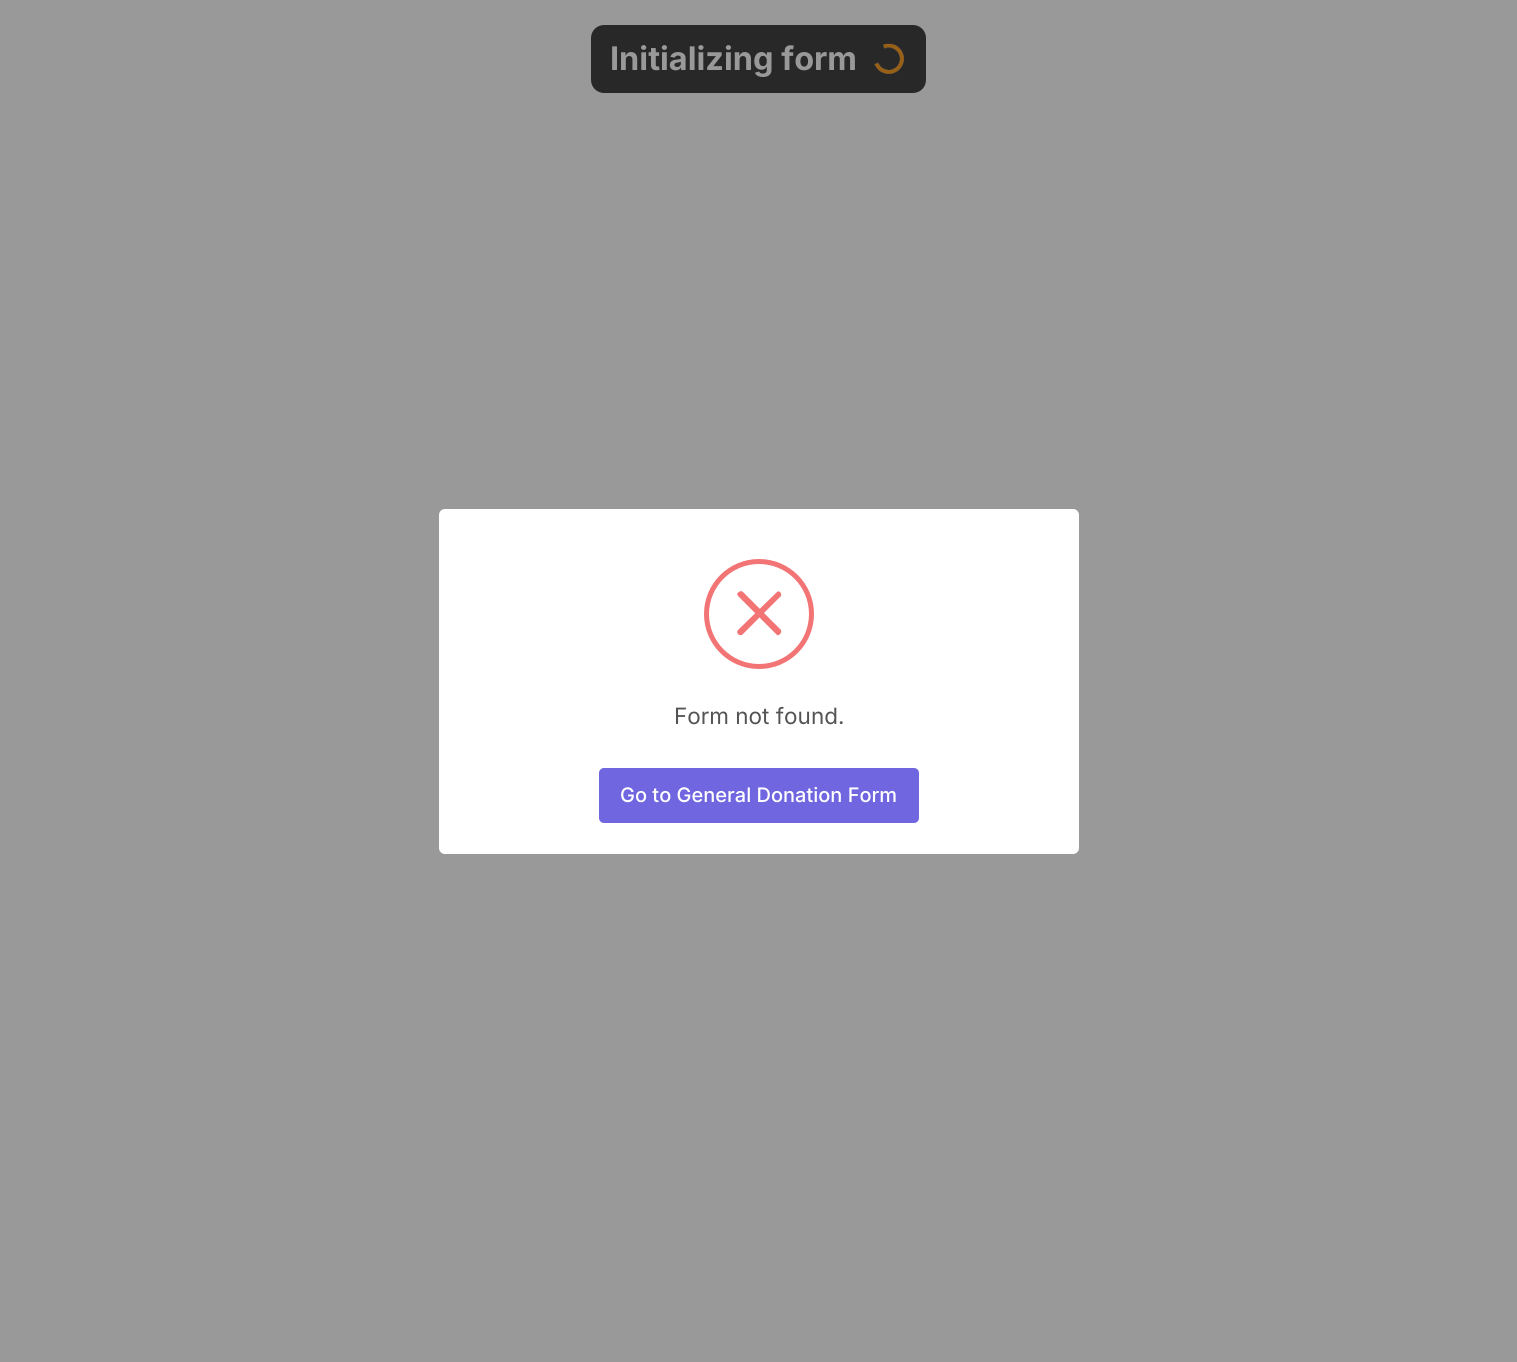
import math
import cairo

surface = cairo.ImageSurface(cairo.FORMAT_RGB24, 1517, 1362)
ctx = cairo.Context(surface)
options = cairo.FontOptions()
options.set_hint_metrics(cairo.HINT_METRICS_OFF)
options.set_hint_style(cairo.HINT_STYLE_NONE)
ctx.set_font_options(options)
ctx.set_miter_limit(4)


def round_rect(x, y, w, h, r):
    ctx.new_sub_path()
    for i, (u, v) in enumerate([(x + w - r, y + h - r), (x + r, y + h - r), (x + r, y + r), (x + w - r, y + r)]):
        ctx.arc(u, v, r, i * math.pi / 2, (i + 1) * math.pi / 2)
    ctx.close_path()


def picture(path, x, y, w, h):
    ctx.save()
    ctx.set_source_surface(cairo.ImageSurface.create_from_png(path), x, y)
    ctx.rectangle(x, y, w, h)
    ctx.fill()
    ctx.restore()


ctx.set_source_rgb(0.6, 0.6, 0.6)
ctx.paint()
ctx.set_source_rgb(0.157, 0.157, 0.157)
round_rect(591, 25, 335, 68, 13)
ctx.fill()
ctx.select_font_face("Inter", cairo.FONT_SLANT_NORMAL, cairo.FONT_WEIGHT_BOLD)
ctx.set_font_size(32.5)
ctx.set_source_rgb(0.6, 0.6, 0.6)
ctx.move_to(610, 70)
ctx.show_text("Initializing form")
picture("img1.png", 874, 43, 30, 31)
ctx.set_source_rgb(1, 1, 1)
round_rect(439, 509, 640, 345, 6)
ctx.fill()
ctx.arc(759, 614, 52.5, 0, 2 * math.pi)
ctx.set_source_rgb(0.949, 0.455, 0.455)
ctx.set_line_width(5)
ctx.stroke()
ctx.new_path()
ctx.move_to(743, 592)
ctx.line_to(781, 630)
ctx.curve_to(782, 633, 779, 636, 777, 635)
ctx.line_to(738, 596)
ctx.line_to(737, 594)
ctx.curve_to(738, 592, 741, 590, 743, 592)
ctx.close_path()
ctx.fill()
ctx.new_path()
ctx.move_to(738, 630)
ctx.line_to(777, 592)
ctx.curve_to(779, 590, 782, 593, 781, 596)
ctx.line_to(742, 635)
ctx.line_to(740, 635)
ctx.curve_to(738, 635, 736, 632, 738, 630)
ctx.close_path()
ctx.fill()
ctx.select_font_face("Inter")
ctx.set_font_size(22.5)
ctx.set_source_rgb(0.329, 0.329, 0.329)
ctx.move_to(674, 724)
ctx.show_text("Form not found.")
ctx.set_source_rgb(0.439, 0.4, 0.878)
round_rect(599, 768, 320, 55, 5)
ctx.fill()
ctx.select_font_face("Inter Medium")
ctx.set_font_size(20)
ctx.set_source_rgb(1, 1, 1)
ctx.move_to(620, 802)
ctx.show_text("Go to General Donation Form")
surface.write_to_png("page.png")
